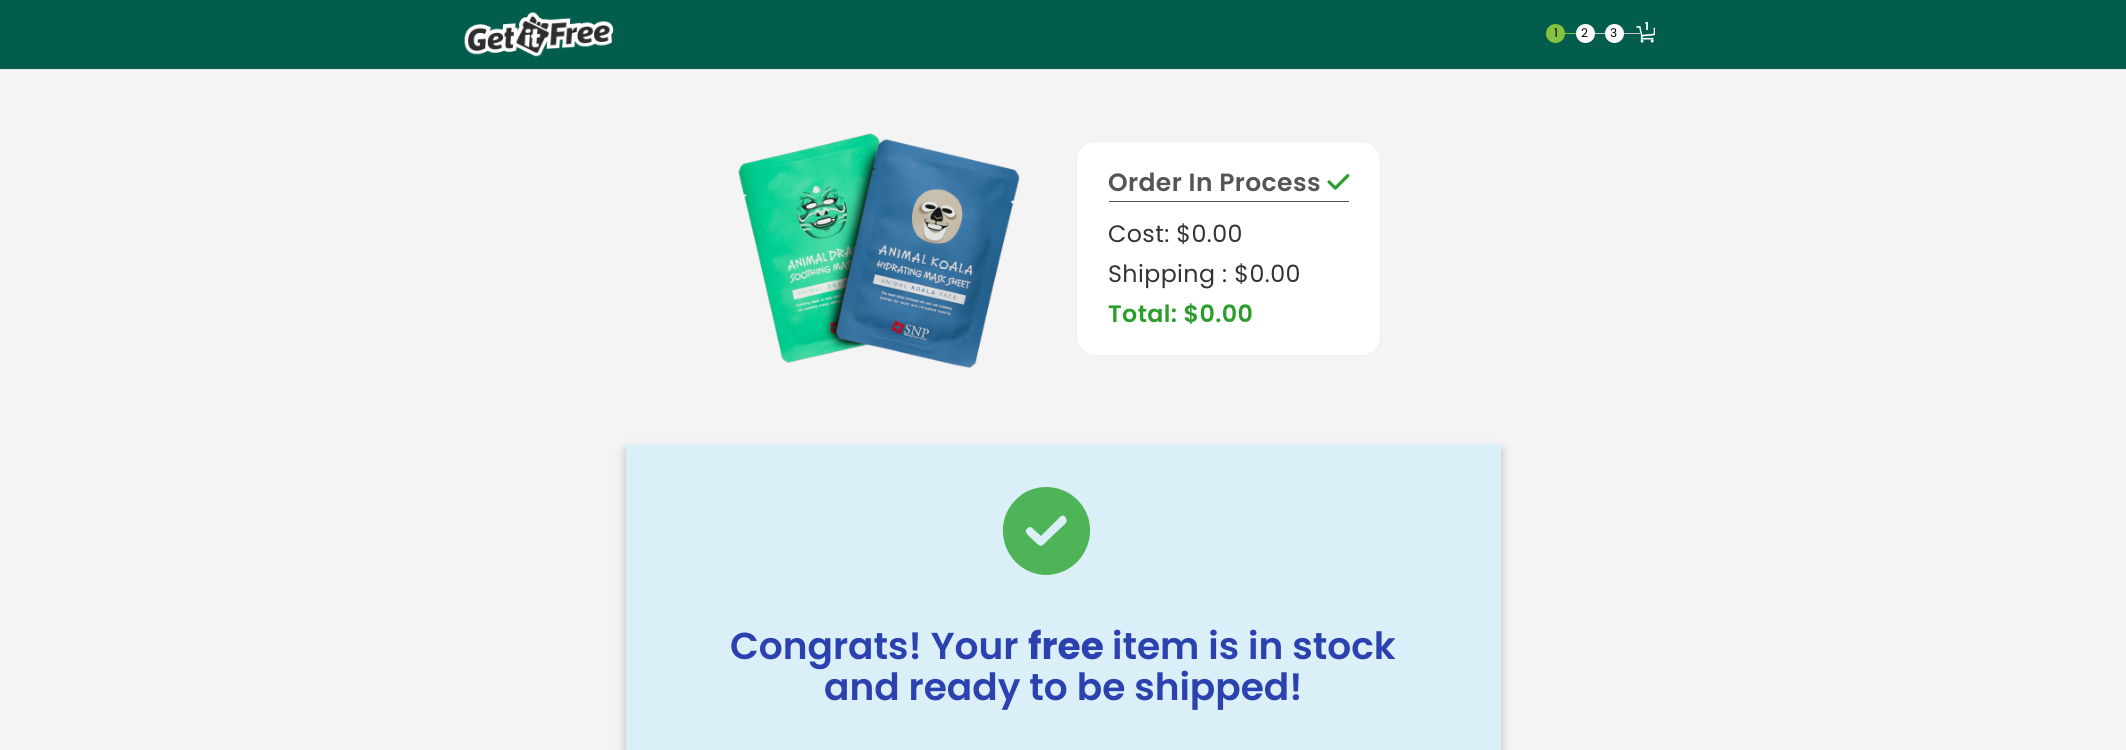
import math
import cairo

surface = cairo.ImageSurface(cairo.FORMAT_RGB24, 2126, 750)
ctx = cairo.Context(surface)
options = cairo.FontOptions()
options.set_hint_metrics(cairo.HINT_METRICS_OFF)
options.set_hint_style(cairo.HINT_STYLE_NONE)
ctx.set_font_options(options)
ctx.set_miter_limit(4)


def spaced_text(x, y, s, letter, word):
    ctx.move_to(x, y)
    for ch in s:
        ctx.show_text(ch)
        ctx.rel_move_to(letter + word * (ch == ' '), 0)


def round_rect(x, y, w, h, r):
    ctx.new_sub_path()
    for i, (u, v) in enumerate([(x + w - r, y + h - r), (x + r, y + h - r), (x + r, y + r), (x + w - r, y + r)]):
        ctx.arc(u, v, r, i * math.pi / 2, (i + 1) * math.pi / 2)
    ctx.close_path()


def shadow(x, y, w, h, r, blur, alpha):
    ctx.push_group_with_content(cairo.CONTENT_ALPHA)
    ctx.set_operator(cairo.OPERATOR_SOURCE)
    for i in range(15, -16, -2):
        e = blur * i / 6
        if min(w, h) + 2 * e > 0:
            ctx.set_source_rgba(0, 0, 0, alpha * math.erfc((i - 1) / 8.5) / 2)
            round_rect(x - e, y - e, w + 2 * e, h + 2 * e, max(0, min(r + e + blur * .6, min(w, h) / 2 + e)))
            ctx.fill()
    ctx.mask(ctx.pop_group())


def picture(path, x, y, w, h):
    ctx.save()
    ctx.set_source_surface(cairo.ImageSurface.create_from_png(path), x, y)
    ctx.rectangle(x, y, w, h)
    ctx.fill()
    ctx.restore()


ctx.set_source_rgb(0.957, 0.957, 0.957)
ctx.paint()
ctx.set_source_rgb(0.008, 0.365, 0.298)
ctx.rectangle(0, 0, 2126, 69)
ctx.fill()
ctx.set_source_rgb(0.91, 0.91, 0.91)
ctx.rectangle(0, 69, 2126, 1)
ctx.fill()
picture("img1.png", 464, 12, 150, 45)
ctx.set_source_rgb(0.529, 0.761, 0.251)
ctx.arc(1555.5, 33.5, 9.5, 0, 2 * math.pi)
ctx.fill()
ctx.select_font_face("Poppins")
ctx.set_font_size(12)
ctx.set_source_rgb(0, 0, 0)
ctx.move_to(1554, 37)
ctx.show_text("1")
ctx.set_source_rgb(0.529, 0.761, 0.251)
ctx.rectangle(1565, 33, 18, 1)
ctx.fill()
ctx.set_source_rgb(1, 1, 1)
ctx.arc(1585.5, 33.5, 9.5, 0, 2 * math.pi)
ctx.fill()
ctx.set_source_rgb(0, 0, 0)
ctx.move_to(1581, 37)
ctx.show_text("2")
ctx.set_source_rgb(0.788, 0.788, 0.788)
ctx.rectangle(1595, 33, 16, 1)
ctx.fill()
ctx.set_source_rgb(1, 1, 1)
ctx.arc(1614.5, 33.5, 9.5, 0, 2 * math.pi)
ctx.fill()
ctx.set_source_rgb(0, 0, 0)
ctx.move_to(1610, 37)
ctx.show_text("3")
ctx.set_source_rgb(0.788, 0.788, 0.788)
ctx.rectangle(1624, 33, 16, 1)
ctx.fill()
picture("img2.png", 1636, 22, 19, 21)
picture("img3.png", 738, 133, 282, 235)
ctx.set_source_rgb(1, 1, 1)
round_rect(1076.5, 141.5, 304, 214, 18.5)
ctx.fill_preserve()
ctx.set_source_rgb(0.933, 0.933, 0.933)
ctx.set_line_width(1)
ctx.stroke()
ctx.set_source_rgb(0.333, 0.333, 0.333)
ctx.rectangle(1109, 201, 240, 1)
ctx.fill()
ctx.select_font_face("Poppins SemiBold")
ctx.set_font_size(25)
spaced_text(1108, 191, "Order In Process", 0.4, 0)
picture("img4.png", 1327, 174, 23, 16)
ctx.select_font_face("Poppins")
ctx.set_font_size(23.75)
ctx.set_source_rgb(0.2, 0.2, 0.2)
spaced_text(1108, 242, "Cost: $0.00", 0.4, 0)
spaced_text(1108, 282, "Shipping : $0.00", 0.4, 0)
ctx.select_font_face("Poppins SemiBold")
ctx.set_source_rgb(0.169, 0.616, 0.169)
spaced_text(1108, 322, "Total: $0.00", 0.4, 0)
ctx.set_source_rgb(0.345, 0.345, 0.345)
shadow(626, 450, 875, 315, 0, 5, 0.4)
ctx.set_source_rgb(0.859, 0.937, 0.976)
ctx.rectangle(626, 444, 875, 306)
ctx.fill()
ctx.set_source_rgb(0.31, 0.706, 0.345)
ctx.new_path()
ctx.move_to(1046, 575)
ctx.curve_to(1088, 574, 1106, 522, 1073, 496)
ctx.curve_to(1065, 490, 1056, 487, 1046, 487)
ctx.curve_to(1037, 487, 1027, 490, 1020, 496)
ctx.curve_to(987, 522, 1005, 574, 1046, 575)
ctx.close_path()
ctx.move_to(1066, 523)
ctx.line_to(1044, 545)
ctx.line_to(1066, 523)
ctx.line_to(1047, 541)
ctx.curve_to(1040, 549, 1040, 546, 1032, 539)
ctx.curve_to(1030, 537, 1022, 531, 1028, 528)
ctx.curve_to(1029, 527, 1030, 527, 1031, 527)
ctx.line_to(1041, 536)
ctx.line_to(1061, 516)
ctx.curve_to(1065, 514, 1068, 520, 1066, 523)
ctx.close_path()
ctx.fill()
ctx.set_font_size(37.5)
ctx.set_source_rgb(0.165, 0.255, 0.686)
ctx.move_to(730, 659)
ctx.show_text("Congrats! Your")
ctx.select_font_face("Poppins", cairo.FONT_SLANT_NORMAL, cairo.FONT_WEIGHT_BOLD)
ctx.move_to(1028, 659)
ctx.show_text("free")
ctx.select_font_face("Poppins SemiBold")
ctx.move_to(1112, 659)
ctx.show_text("item is in stock")
ctx.move_to(824, 700)
ctx.show_text("and ready to be shipped!")
surface.write_to_png("page.png")
